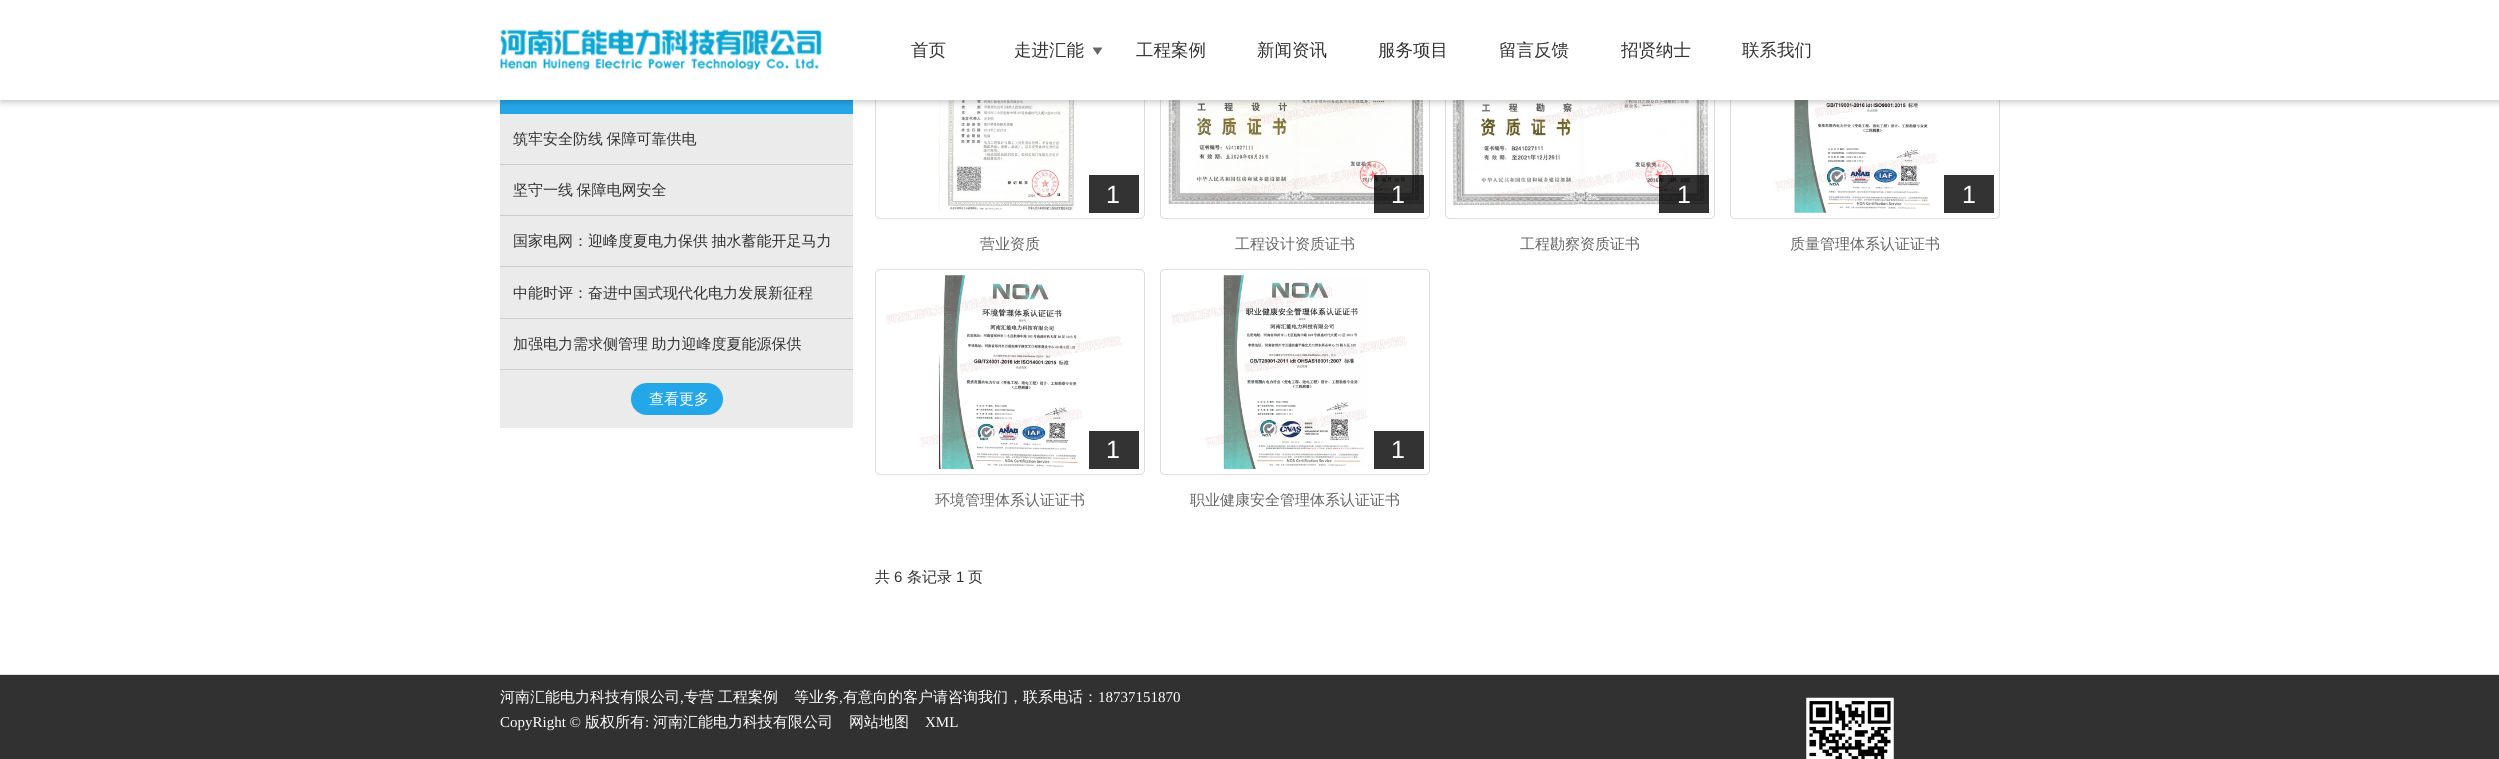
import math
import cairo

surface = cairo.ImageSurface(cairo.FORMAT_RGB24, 2499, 759)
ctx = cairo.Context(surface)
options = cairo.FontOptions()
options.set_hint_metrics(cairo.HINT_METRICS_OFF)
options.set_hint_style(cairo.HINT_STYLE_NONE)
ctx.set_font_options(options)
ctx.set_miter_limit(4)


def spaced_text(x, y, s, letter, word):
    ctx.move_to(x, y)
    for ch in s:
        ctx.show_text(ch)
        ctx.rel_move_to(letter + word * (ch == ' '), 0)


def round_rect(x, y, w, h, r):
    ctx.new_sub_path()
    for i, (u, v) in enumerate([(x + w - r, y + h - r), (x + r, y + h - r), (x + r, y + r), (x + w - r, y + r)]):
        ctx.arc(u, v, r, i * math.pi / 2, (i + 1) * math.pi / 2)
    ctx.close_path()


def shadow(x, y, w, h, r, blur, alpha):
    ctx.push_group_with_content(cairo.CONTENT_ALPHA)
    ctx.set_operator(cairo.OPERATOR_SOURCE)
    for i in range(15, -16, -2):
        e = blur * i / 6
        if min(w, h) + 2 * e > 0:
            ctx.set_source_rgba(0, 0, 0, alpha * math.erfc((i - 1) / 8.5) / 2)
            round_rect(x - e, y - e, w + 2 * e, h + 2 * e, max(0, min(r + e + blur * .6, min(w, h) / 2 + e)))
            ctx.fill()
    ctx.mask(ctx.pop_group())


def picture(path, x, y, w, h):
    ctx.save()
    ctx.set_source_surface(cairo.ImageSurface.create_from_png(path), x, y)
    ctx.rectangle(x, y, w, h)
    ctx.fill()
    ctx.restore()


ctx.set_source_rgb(1, 1, 1)
ctx.paint()
ctx.set_source_rgb(0.141, 0.655, 0.91)
ctx.rectangle(500, 100, 353, 14)
ctx.fill()
round_rect(875.5, 14.5, 269, 204, 4.5)
ctx.set_source_rgb(0.867, 0.867, 0.867)
ctx.set_line_width(1)
ctx.stroke()
picture("img2.png", 938, 100, 142, 113)
round_rect(1160.5, 14.5, 269, 204, 4.5)
ctx.stroke()
picture("img3.png", 1168, 100, 255, 105)
round_rect(1445.5, 14.5, 269, 204, 4.5)
ctx.stroke()
picture("img4.png", 1451, 100, 257, 112)
round_rect(1730.5, 14.5, 269, 204, 4.5)
ctx.stroke()
picture("img5.png", 1741, 100, 236, 113)
ctx.set_source_rgb(0, 0, 0)
shadow(1, 1, 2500, 100, 0, 4, 0.28)
ctx.set_source_rgb(1, 1, 1)
ctx.rectangle(0, 0, 2499, 100)
ctx.fill()
picture("img1.png", 500, 29, 322, 41)
ctx.select_font_face("WenQuanYi Zen Hei Medium")
ctx.set_font_size(17.5)
ctx.set_source_rgb(0.2, 0.2, 0.2)
ctx.move_to(911, 56)
ctx.show_text("首页")
ctx.move_to(1014, 56)
ctx.show_text("走进汇能")
ctx.set_source_rgb(0.4, 0.4, 0.4)
ctx.new_path()
ctx.move_to(1092.5, 47.5)
ctx.line_to(1102.5, 47.5)
ctx.line_to(1097.5, 55)
ctx.close_path()
ctx.fill()
ctx.set_source_rgb(0.2, 0.2, 0.2)
ctx.move_to(1136, 56)
ctx.show_text("工程案例")
ctx.move_to(1257, 56)
ctx.show_text("新闻资讯")
ctx.move_to(1378, 56)
ctx.show_text("服务项目")
ctx.move_to(1499, 56)
ctx.show_text("留言反馈")
ctx.move_to(1621, 56)
ctx.show_text("招贤纳士")
ctx.move_to(1742, 56)
ctx.show_text("联系我们")
ctx.set_source_rgb(0.918, 0.918, 0.918)
ctx.rectangle(500, 114, 353, 314)
ctx.fill()
ctx.set_source_rgb(0.8, 0.8, 0.8)
ctx.rectangle(500, 164, 353, 1)
ctx.fill()
ctx.set_font_size(15)
ctx.set_source_rgb(0.2, 0.2, 0.2)
spaced_text(513, 144, "筑牢安全防线 保障可靠供电", 0, -1)
ctx.set_source_rgb(0.8, 0.8, 0.8)
ctx.rectangle(500, 215, 353, 1)
ctx.fill()
ctx.set_source_rgb(0.2, 0.2, 0.2)
spaced_text(513, 195, "坚守一线 保障电网安全", 0, -1)
ctx.set_source_rgb(0.8, 0.8, 0.8)
ctx.rectangle(500, 266, 353, 1)
ctx.fill()
ctx.set_source_rgb(0.2, 0.2, 0.2)
spaced_text(513, 246, "国家电网：迎峰度夏电力保供 抽水蓄能开足马力", 0, -1)
ctx.set_source_rgb(0.8, 0.8, 0.8)
ctx.rectangle(500, 318, 353, 1)
ctx.fill()
ctx.set_source_rgb(0.2, 0.2, 0.2)
ctx.move_to(513, 298)
ctx.show_text("中能时评：奋进中国式现代化电力发展新征程")
ctx.set_source_rgb(0.8, 0.8, 0.8)
ctx.rectangle(500, 369, 353, 1)
ctx.fill()
ctx.set_source_rgb(0.2, 0.2, 0.2)
spaced_text(513, 349, "加强电力需求侧管理 助力迎峰度夏能源保供", 0, -1)
ctx.set_source_rgb(0.141, 0.655, 0.91)
round_rect(631, 383, 92, 32, 16)
ctx.fill()
ctx.set_source_rgb(1, 1, 1)
ctx.move_to(649, 404)
ctx.show_text("查看更多")
ctx.set_source_rgb(0.2, 0.2, 0.2)
ctx.rectangle(1089, 175, 50, 38)
ctx.fill()
ctx.select_font_face("Liberation Sans")
ctx.set_font_size(25)
ctx.set_source_rgb(1, 1, 1)
ctx.move_to(1106, 203)
ctx.show_text("1")
ctx.select_font_face("WenQuanYi Zen Hei Medium")
ctx.set_font_size(15)
ctx.set_source_rgb(0.4, 0.4, 0.4)
ctx.move_to(980, 249)
ctx.show_text("营业资质")
ctx.set_source_rgba(0, 0, 0, 0.8)
ctx.rectangle(1374, 175, 50, 38)
ctx.fill()
ctx.select_font_face("Liberation Sans")
ctx.set_font_size(25)
ctx.set_source_rgb(1, 1, 1)
ctx.move_to(1391, 203)
ctx.show_text("1")
ctx.select_font_face("WenQuanYi Zen Hei Medium")
ctx.set_font_size(15)
ctx.set_source_rgb(0.4, 0.4, 0.4)
ctx.move_to(1235, 249)
ctx.show_text("工程设计资质证书")
ctx.set_source_rgba(0, 0, 0, 0.8)
ctx.rectangle(1659, 175, 50, 38)
ctx.fill()
ctx.select_font_face("Liberation Sans")
ctx.set_font_size(25)
ctx.set_source_rgb(1, 1, 1)
ctx.move_to(1677, 203)
ctx.show_text("1")
ctx.select_font_face("WenQuanYi Zen Hei Medium")
ctx.set_font_size(15)
ctx.set_source_rgb(0.4, 0.4, 0.4)
ctx.move_to(1520, 249)
ctx.show_text("工程勘察资质证书")
ctx.set_source_rgb(0.2, 0.2, 0.2)
ctx.rectangle(1944, 175, 50, 38)
ctx.fill()
ctx.select_font_face("Liberation Sans")
ctx.set_font_size(25)
ctx.set_source_rgb(1, 1, 1)
ctx.move_to(1962, 203)
ctx.show_text("1")
ctx.select_font_face("WenQuanYi Zen Hei Medium")
ctx.set_font_size(15)
ctx.set_source_rgb(0.4, 0.4, 0.4)
ctx.move_to(1790, 249)
ctx.show_text("质量管理体系认证证书")
round_rect(875.5, 269.5, 269, 205, 4.5)
ctx.set_source_rgb(0.867, 0.867, 0.867)
ctx.stroke()
picture("img6.png", 886, 275, 236, 194)
ctx.set_source_rgb(0.2, 0.2, 0.2)
ctx.rectangle(1089, 431, 50, 38)
ctx.fill()
ctx.select_font_face("Liberation Sans")
ctx.set_font_size(25)
ctx.set_source_rgb(1, 1, 1)
ctx.move_to(1106, 458)
ctx.show_text("1")
ctx.select_font_face("WenQuanYi Zen Hei Medium")
ctx.set_font_size(15)
ctx.set_source_rgb(0.4, 0.4, 0.4)
ctx.move_to(935, 505)
ctx.show_text("环境管理体系认证证书")
round_rect(1160.5, 269.5, 269, 205, 4.5)
ctx.set_source_rgb(0.867, 0.867, 0.867)
ctx.stroke()
picture("img7.png", 1171, 275, 236, 194)
ctx.set_source_rgb(0.2, 0.2, 0.2)
ctx.rectangle(1374, 431, 50, 38)
ctx.fill()
ctx.select_font_face("Liberation Sans")
ctx.set_font_size(25)
ctx.set_source_rgb(1, 1, 1)
ctx.move_to(1391, 458)
ctx.show_text("1")
ctx.select_font_face("WenQuanYi Zen Hei Medium")
ctx.set_font_size(15)
ctx.set_source_rgb(0.4, 0.4, 0.4)
ctx.move_to(1190, 505)
ctx.show_text("职业健康安全管理体系认证证书")
ctx.set_source_rgb(0.2, 0.2, 0.2)
ctx.move_to(875, 582)
ctx.show_text("共")
ctx.select_font_face("Liberation Sans")
ctx.move_to(894, 582)
ctx.show_text("6")
ctx.select_font_face("WenQuanYi Zen Hei Medium")
ctx.move_to(907, 582)
ctx.show_text("条记录")
ctx.select_font_face("Liberation Sans")
ctx.move_to(956, 582)
ctx.show_text("1")
ctx.select_font_face("WenQuanYi Zen Hei Medium")
ctx.move_to(968, 582)
ctx.show_text("页")
ctx.set_source_rgb(0.192, 0.192, 0.192)
ctx.rectangle(0, 675, 2499, 84)
ctx.fill()
ctx.set_source_rgb(0.867, 0.867, 0.867)
ctx.rectangle(0, 674, 2499, 1)
ctx.fill()
ctx.set_source_rgb(1, 1, 1)
ctx.move_to(500, 702)
ctx.show_text("河南汇能电力科技有限公司")
ctx.select_font_face("Liberation Serif")
ctx.move_to(680, 702)
ctx.show_text(",")
ctx.select_font_face("WenQuanYi Zen Hei Medium")
ctx.move_to(684, 702)
ctx.show_text("专营")
ctx.move_to(718, 702)
ctx.show_text("工程案例")
ctx.move_to(794, 702)
ctx.show_text("等业务")
ctx.select_font_face("Liberation Serif")
ctx.move_to(839, 702)
ctx.show_text(",")
ctx.select_font_face("WenQuanYi Zen Hei Medium")
ctx.move_to(843, 702)
ctx.show_text("有意向的客户请咨询我们，联系电话：")
ctx.select_font_face("Liberation Serif")
ctx.move_to(1098, 702)
ctx.show_text("18737151870")
ctx.move_to(500, 727)
ctx.show_text("CopyRight ©")
ctx.select_font_face("WenQuanYi Zen Hei Medium")
ctx.move_to(585, 727)
ctx.show_text("版权所有")
ctx.select_font_face("Liberation Serif")
ctx.move_to(645, 727)
ctx.show_text(":")
ctx.select_font_face("WenQuanYi Zen Hei Medium")
ctx.move_to(653, 727)
ctx.show_text("河南汇能电力科技有限公司")
ctx.move_to(849, 727)
ctx.show_text("网站地图")
ctx.select_font_face("Liberation Serif")
ctx.move_to(925, 727)
ctx.show_text("XML")
picture("img8.png", 1806, 697, 88, 62)
surface.write_to_png("page.png")
